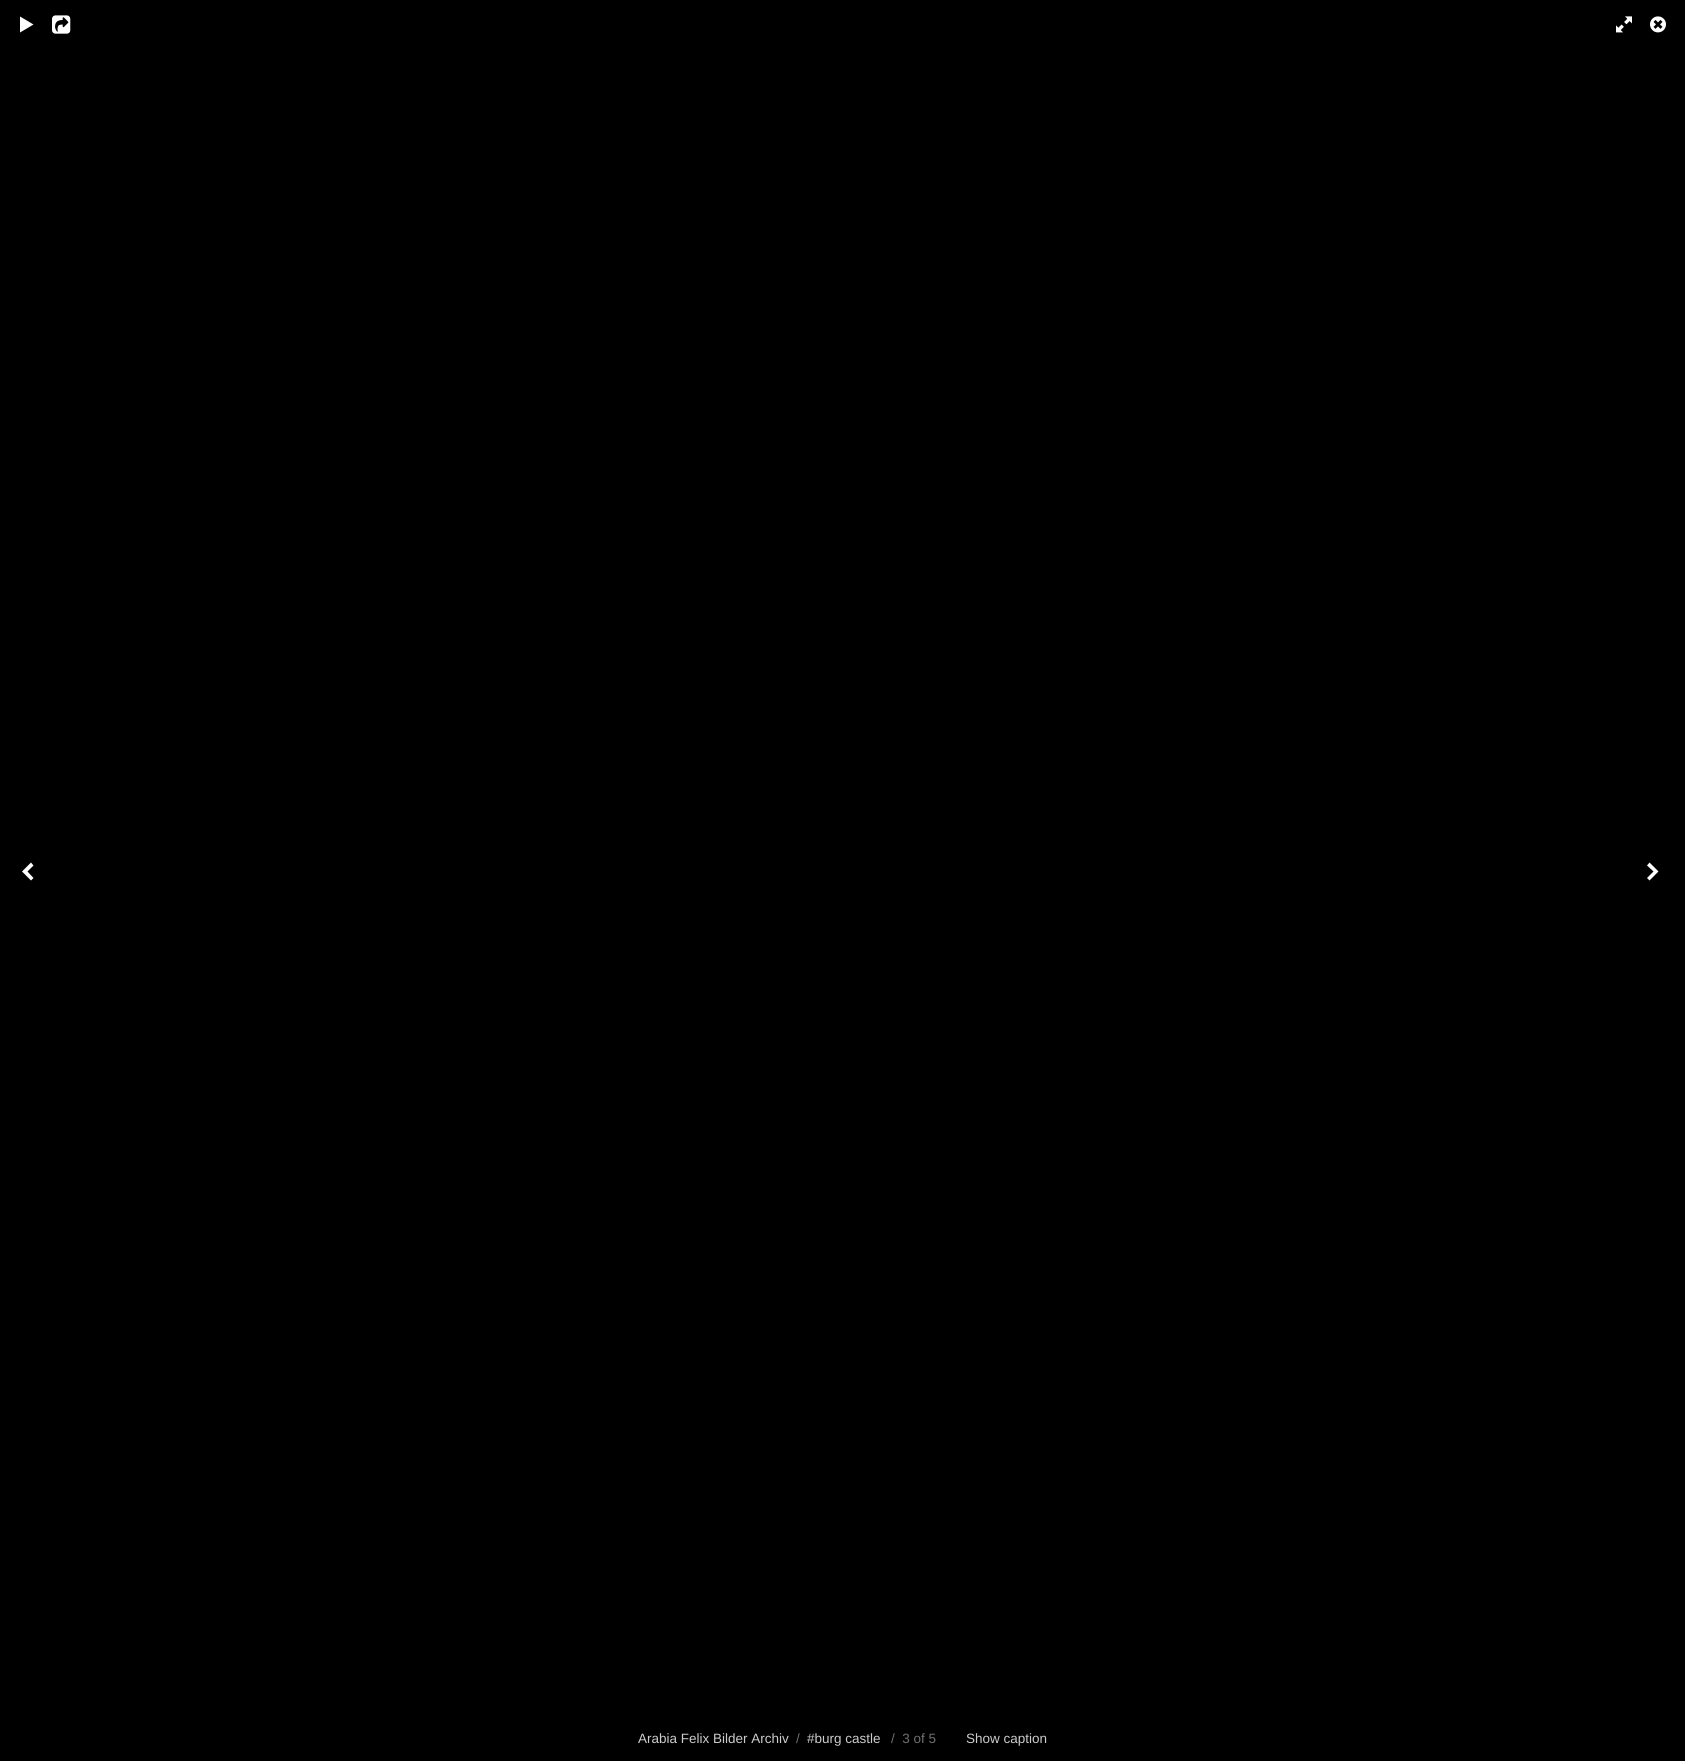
import math
import cairo

surface = cairo.ImageSurface(cairo.FORMAT_RGB24, 1685, 1761)
ctx = cairo.Context(surface)
options = cairo.FontOptions()
options.set_hint_metrics(cairo.HINT_METRICS_OFF)
options.set_hint_style(cairo.HINT_STYLE_NONE)
ctx.set_font_options(options)
ctx.set_miter_limit(4)


def picture(path, x, y, w, h):
    ctx.save()
    ctx.set_source_surface(cairo.ImageSurface.create_from_png(path), x, y)
    ctx.rectangle(x, y, w, h)
    ctx.fill()
    ctx.restore()


ctx.set_source_rgb(0, 0, 0)
ctx.paint()
ctx.set_source_rgb(1, 1, 1)
ctx.new_path()
ctx.move_to(20, 32.5)
ctx.line_to(20, 16.5)
ctx.line_to(33.5, 24.5)
ctx.close_path()
ctx.fill()
picture("img1.png", 52, 15, 19, 19)
picture("img2.png", 1616, 16, 16, 17)
picture("img3.png", 1650, 16, 16, 17)
ctx.new_path()
ctx.move_to(22, 871.5)
ctx.line_to(31, 862.5)
ctx.line_to(33.5, 865.5)
ctx.line_to(27.5, 871.5)
ctx.line_to(33.5, 878)
ctx.line_to(31, 880.5)
ctx.close_path()
ctx.fill()
ctx.new_path()
ctx.move_to(1647, 878)
ctx.line_to(1653.5, 871.5)
ctx.line_to(1647, 865.5)
ctx.line_to(1649.5, 862.5)
ctx.line_to(1658.5, 871.5)
ctx.line_to(1649.5, 880.5)
ctx.close_path()
ctx.fill()
ctx.select_font_face("Liberation Sans")
ctx.set_font_size(13.5)
ctx.set_source_rgb(0.8, 0.8, 0.8)
ctx.move_to(638, 1743)
ctx.show_text("Arabia Felix Bilder Archiv")
ctx.set_source_rgb(0.439, 0.439, 0.439)
ctx.move_to(796, 1743)
ctx.show_text("/")
ctx.set_source_rgb(0.8, 0.8, 0.8)
ctx.move_to(807, 1743)
ctx.show_text("#burg castle")
ctx.set_source_rgb(0.439, 0.439, 0.439)
ctx.move_to(891, 1743)
ctx.show_text("/  3 of 5")
ctx.set_source_rgb(0.8, 0.8, 0.8)
ctx.move_to(966, 1743)
ctx.show_text("Show caption")
surface.write_to_png("page.png")
